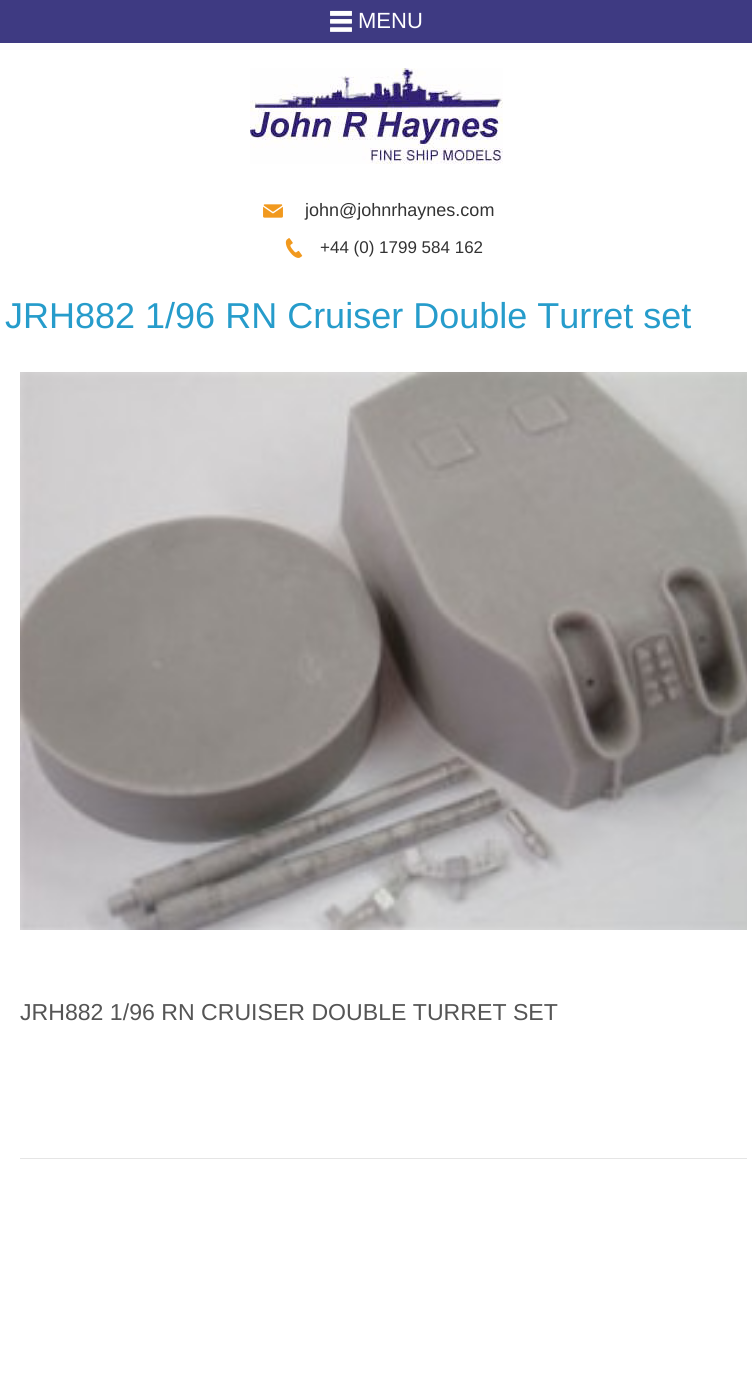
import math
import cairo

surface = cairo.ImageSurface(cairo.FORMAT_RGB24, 752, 1383)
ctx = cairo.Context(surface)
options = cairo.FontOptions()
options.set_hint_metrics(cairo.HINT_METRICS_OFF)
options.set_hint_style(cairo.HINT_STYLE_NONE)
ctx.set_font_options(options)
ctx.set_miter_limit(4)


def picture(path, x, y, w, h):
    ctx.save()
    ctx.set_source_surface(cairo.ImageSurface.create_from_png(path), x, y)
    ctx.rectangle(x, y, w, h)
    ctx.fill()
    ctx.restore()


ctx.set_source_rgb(1, 1, 1)
ctx.paint()
ctx.set_source_rgb(0.243, 0.227, 0.51)
ctx.rectangle(0, 0, 752, 43)
ctx.fill()
picture("img1.png", 330, 10, 22, 22)
ctx.select_font_face("Liberation Sans")
ctx.set_font_size(22)
ctx.set_source_rgb(1, 1, 1)
ctx.move_to(358, 28)
ctx.show_text("MENU")
picture("img2.png", 250, 68, 253, 96)
picture("img3.png", 263, 204, 20, 14)
ctx.set_font_size(18)
ctx.set_source_rgb(0.2, 0.2, 0.2)
ctx.move_to(305, 216)
ctx.show_text("john@johnrhaynes.com")
picture("img4.png", 285, 238, 18, 20)
ctx.set_font_size(17)
ctx.move_to(320, 253)
ctx.show_text("+44 (0) 1799 584 162")
ctx.set_font_size(36)
ctx.set_source_rgb(0.149, 0.612, 0.796)
ctx.move_to(5, 328)
ctx.show_text("JRH882 1/96 RN Cruiser Double Turret set")
picture("img5.png", 20, 372, 727, 558)
ctx.set_font_size(23.1)
ctx.set_source_rgb(0.333, 0.333, 0.333)
ctx.move_to(20, 1020)
ctx.show_text("JRH882 1/96 RN CRUISER DOUBLE TURRET SET")
ctx.set_source_rgb(0.898, 0.898, 0.898)
ctx.rectangle(20, 1158, 727, 1)
ctx.fill()
surface.write_to_png("page.png")
